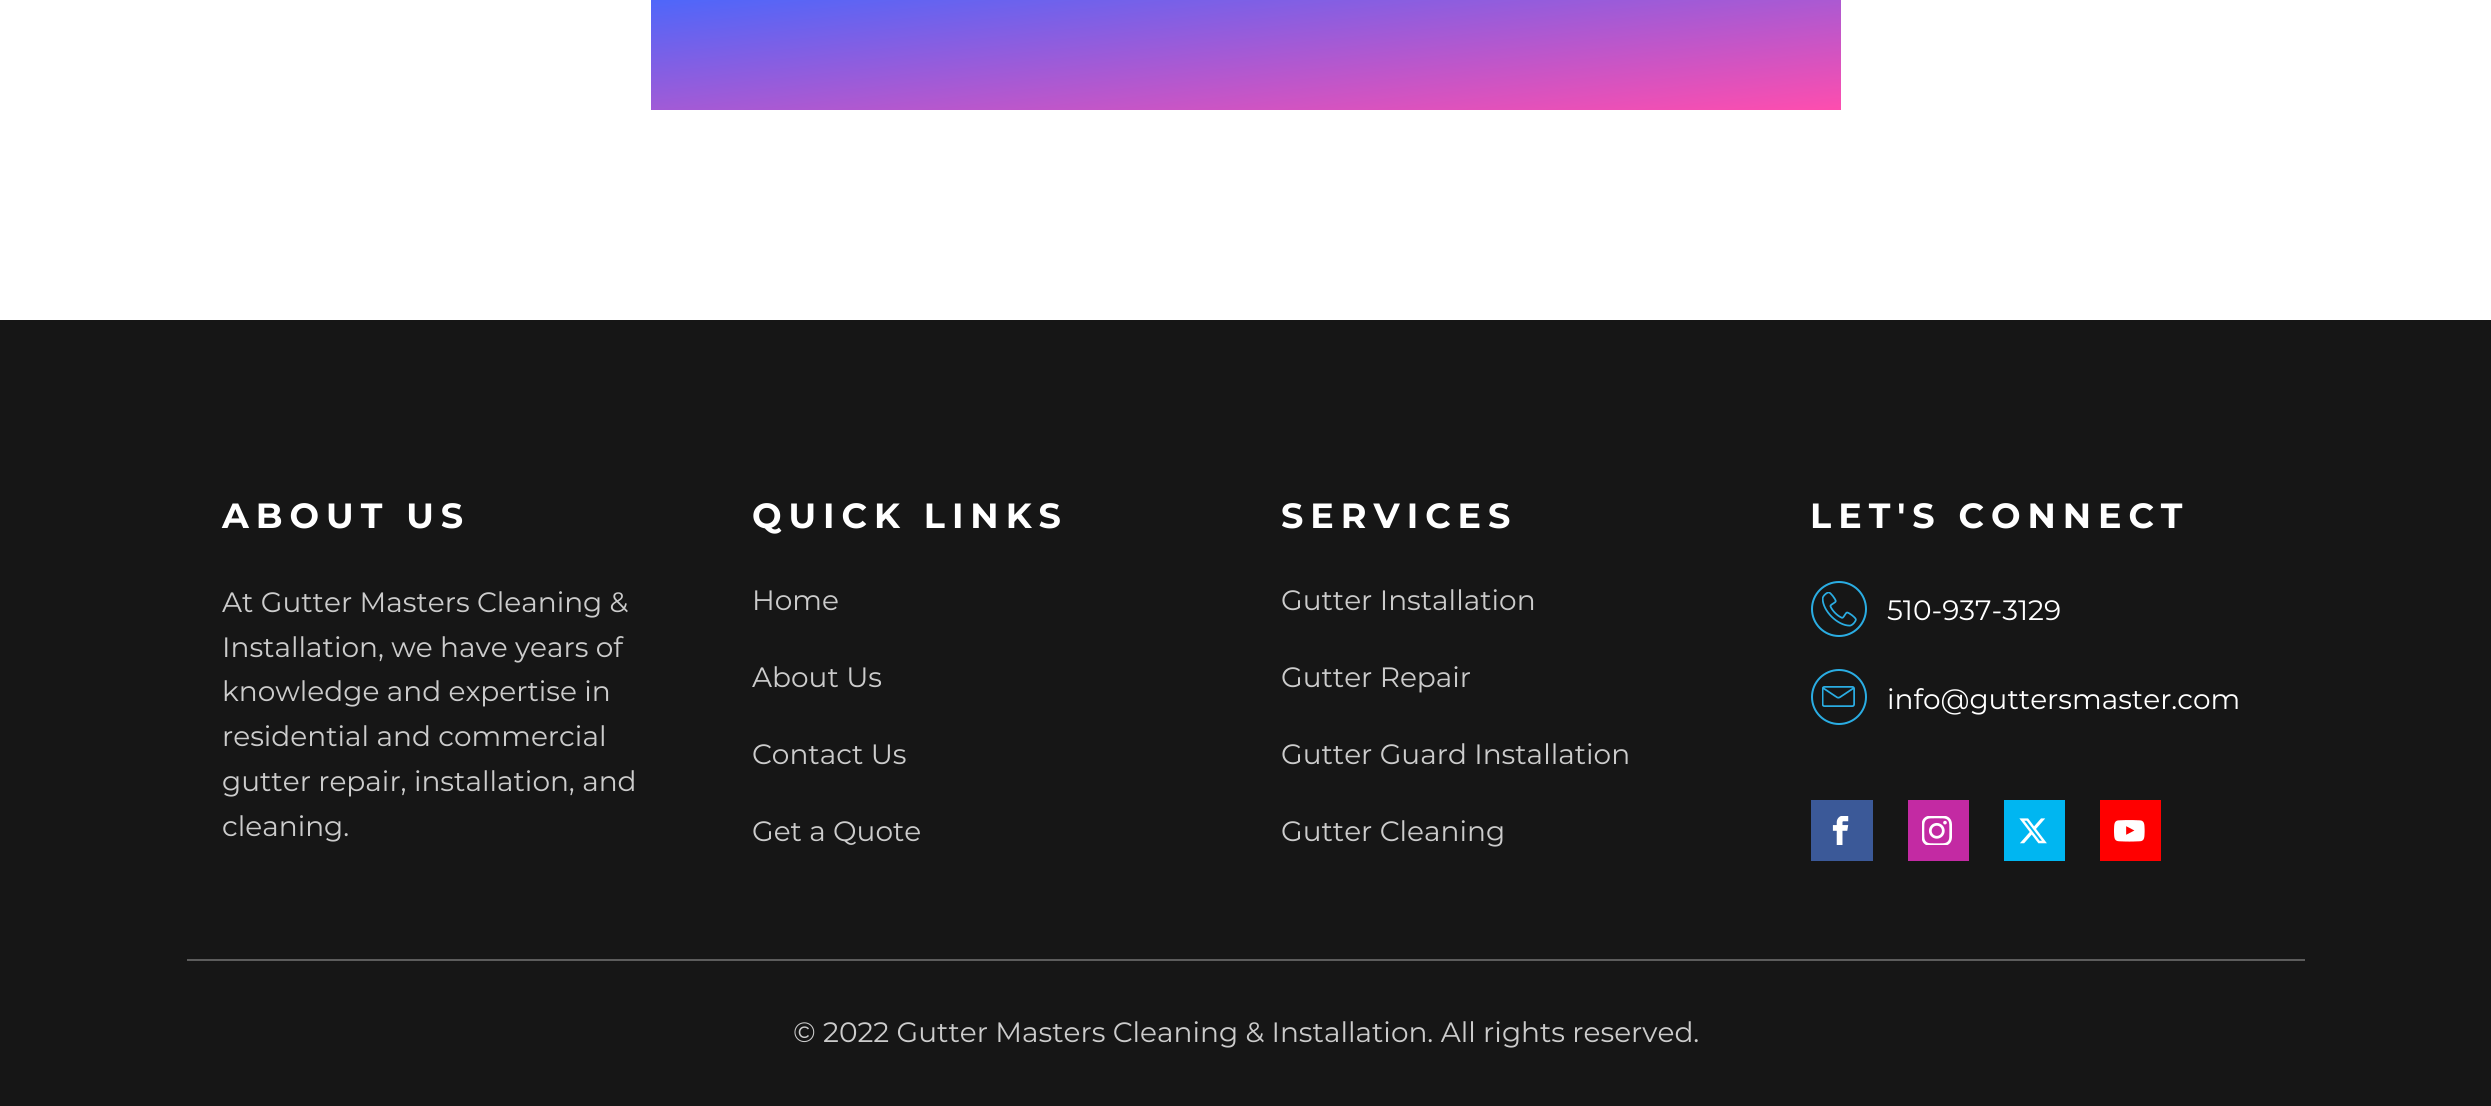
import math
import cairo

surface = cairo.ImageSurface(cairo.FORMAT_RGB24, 2491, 1106)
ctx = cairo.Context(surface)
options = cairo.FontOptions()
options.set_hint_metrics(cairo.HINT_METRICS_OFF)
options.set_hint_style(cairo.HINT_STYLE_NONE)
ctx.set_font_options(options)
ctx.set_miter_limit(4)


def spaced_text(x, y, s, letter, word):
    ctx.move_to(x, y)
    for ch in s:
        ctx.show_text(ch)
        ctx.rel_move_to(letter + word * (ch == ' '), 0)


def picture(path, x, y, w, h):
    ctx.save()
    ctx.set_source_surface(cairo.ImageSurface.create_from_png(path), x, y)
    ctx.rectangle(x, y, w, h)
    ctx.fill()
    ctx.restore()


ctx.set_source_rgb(1, 1, 1)
ctx.paint()
gradient = cairo.LinearGradient(1259, 172, 1233, -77)
gradient.add_color_stop_rgba(0, 1, 0.302, 0.682, 1)
gradient.add_color_stop_rgba(1, 0.259, 0.408, 1, 1)
ctx.set_source(gradient)
ctx.rectangle(651, 0, 1190, 110)
ctx.fill()
ctx.set_source_rgb(0.086, 0.086, 0.086)
ctx.rectangle(0, 320, 2491, 786)
ctx.fill()
ctx.set_source_rgb(0.361, 0.361, 0.361)
ctx.rectangle(187, 959, 2118, 2)
ctx.fill()
ctx.select_font_face("Montserrat", cairo.FONT_SLANT_NORMAL, cairo.FONT_WEIGHT_BOLD)
ctx.set_font_size(35)
ctx.set_source_rgb(1, 1, 1)
spaced_text(222, 528, "ABOUT US", 7, 0)
ctx.select_font_face("Montserrat")
ctx.set_font_size(28)
ctx.set_source_rgb(0.8, 0.8, 0.8)
ctx.move_to(222, 612)
ctx.show_text("At Gutter Masters Cleaning &")
ctx.move_to(222, 657)
ctx.show_text("Installation, we have years of")
ctx.move_to(222, 701)
ctx.show_text("knowledge and expertise in")
ctx.move_to(222, 746)
ctx.show_text("residential and commercial")
ctx.move_to(222, 791)
ctx.show_text("gutter repair, installation, and")
ctx.move_to(222, 836)
ctx.show_text("cleaning.")
ctx.select_font_face("Montserrat", cairo.FONT_SLANT_NORMAL, cairo.FONT_WEIGHT_BOLD)
ctx.set_font_size(35)
ctx.set_source_rgb(1, 1, 1)
spaced_text(752, 528, "QUICK LINKS", 7, 0)
ctx.select_font_face("Montserrat")
ctx.set_font_size(28)
ctx.set_source_rgb(0.8, 0.8, 0.8)
ctx.move_to(752, 610)
ctx.show_text("Home")
ctx.move_to(752, 687)
ctx.show_text("About Us")
ctx.move_to(752, 764)
ctx.show_text("Contact Us")
ctx.move_to(752, 841)
ctx.show_text("Get a Quote")
ctx.select_font_face("Montserrat", cairo.FONT_SLANT_NORMAL, cairo.FONT_WEIGHT_BOLD)
ctx.set_font_size(35)
ctx.set_source_rgb(1, 1, 1)
spaced_text(1281, 528, "SERVICES", 7, 0)
ctx.select_font_face("Montserrat")
ctx.set_font_size(28)
ctx.set_source_rgb(0.8, 0.8, 0.8)
ctx.move_to(1281, 610)
ctx.show_text("Gutter Installation")
ctx.move_to(1281, 687)
ctx.show_text("Gutter Repair")
ctx.move_to(1281, 764)
ctx.show_text("Gutter Guard Installation")
ctx.move_to(1281, 841)
ctx.show_text("Gutter Cleaning")
ctx.select_font_face("Montserrat", cairo.FONT_SLANT_NORMAL, cairo.FONT_WEIGHT_BOLD)
ctx.set_font_size(35)
ctx.set_source_rgb(1, 1, 1)
spaced_text(1810, 528, "LET'S CONNECT", 7, 0)
ctx.new_path()
ctx.arc(1839, 609, 27, 0, 2 * math.pi)
ctx.set_source_rgb(0.165, 0.678, 0.89)
ctx.stroke()
picture("img1.png", 1822, 592, 35, 35)
ctx.select_font_face("Montserrat")
ctx.set_font_size(28)
ctx.set_source_rgb(1, 1, 1)
ctx.move_to(1887, 620)
ctx.show_text("510-937-3129")
ctx.new_path()
ctx.arc(1839, 697, 27, 0, 2 * math.pi)
ctx.set_source_rgb(0.165, 0.678, 0.89)
ctx.stroke()
picture("img2.png", 1822, 686, 33, 21)
ctx.set_source_rgb(1, 1, 1)
ctx.move_to(1887, 709)
ctx.show_text("info@guttersmaster.com")
ctx.set_source_rgb(0.231, 0.349, 0.596)
ctx.rectangle(1811, 800, 62, 61)
ctx.fill()
picture("img3.png", 1832, 816, 17, 29)
ctx.set_source_rgb(0.765, 0.165, 0.639)
ctx.rectangle(1908, 800, 61, 61)
ctx.fill()
picture("img4.png", 1922, 816, 30, 29)
ctx.set_source_rgb(0, 0.714, 0.945)
ctx.rectangle(2004, 800, 61, 61)
ctx.fill()
picture("img5.png", 2019, 818, 28, 26)
ctx.set_source_rgb(1, 0, 0)
ctx.rectangle(2100, 800, 61, 61)
ctx.fill()
picture("img6.png", 2114, 820, 31, 22)
ctx.set_source_rgb(0.8, 0.8, 0.8)
ctx.move_to(793, 1042)
ctx.show_text("© 2022 Gutter Masters Cleaning & Installation. All rights reserved.")
surface.write_to_png("page.png")
